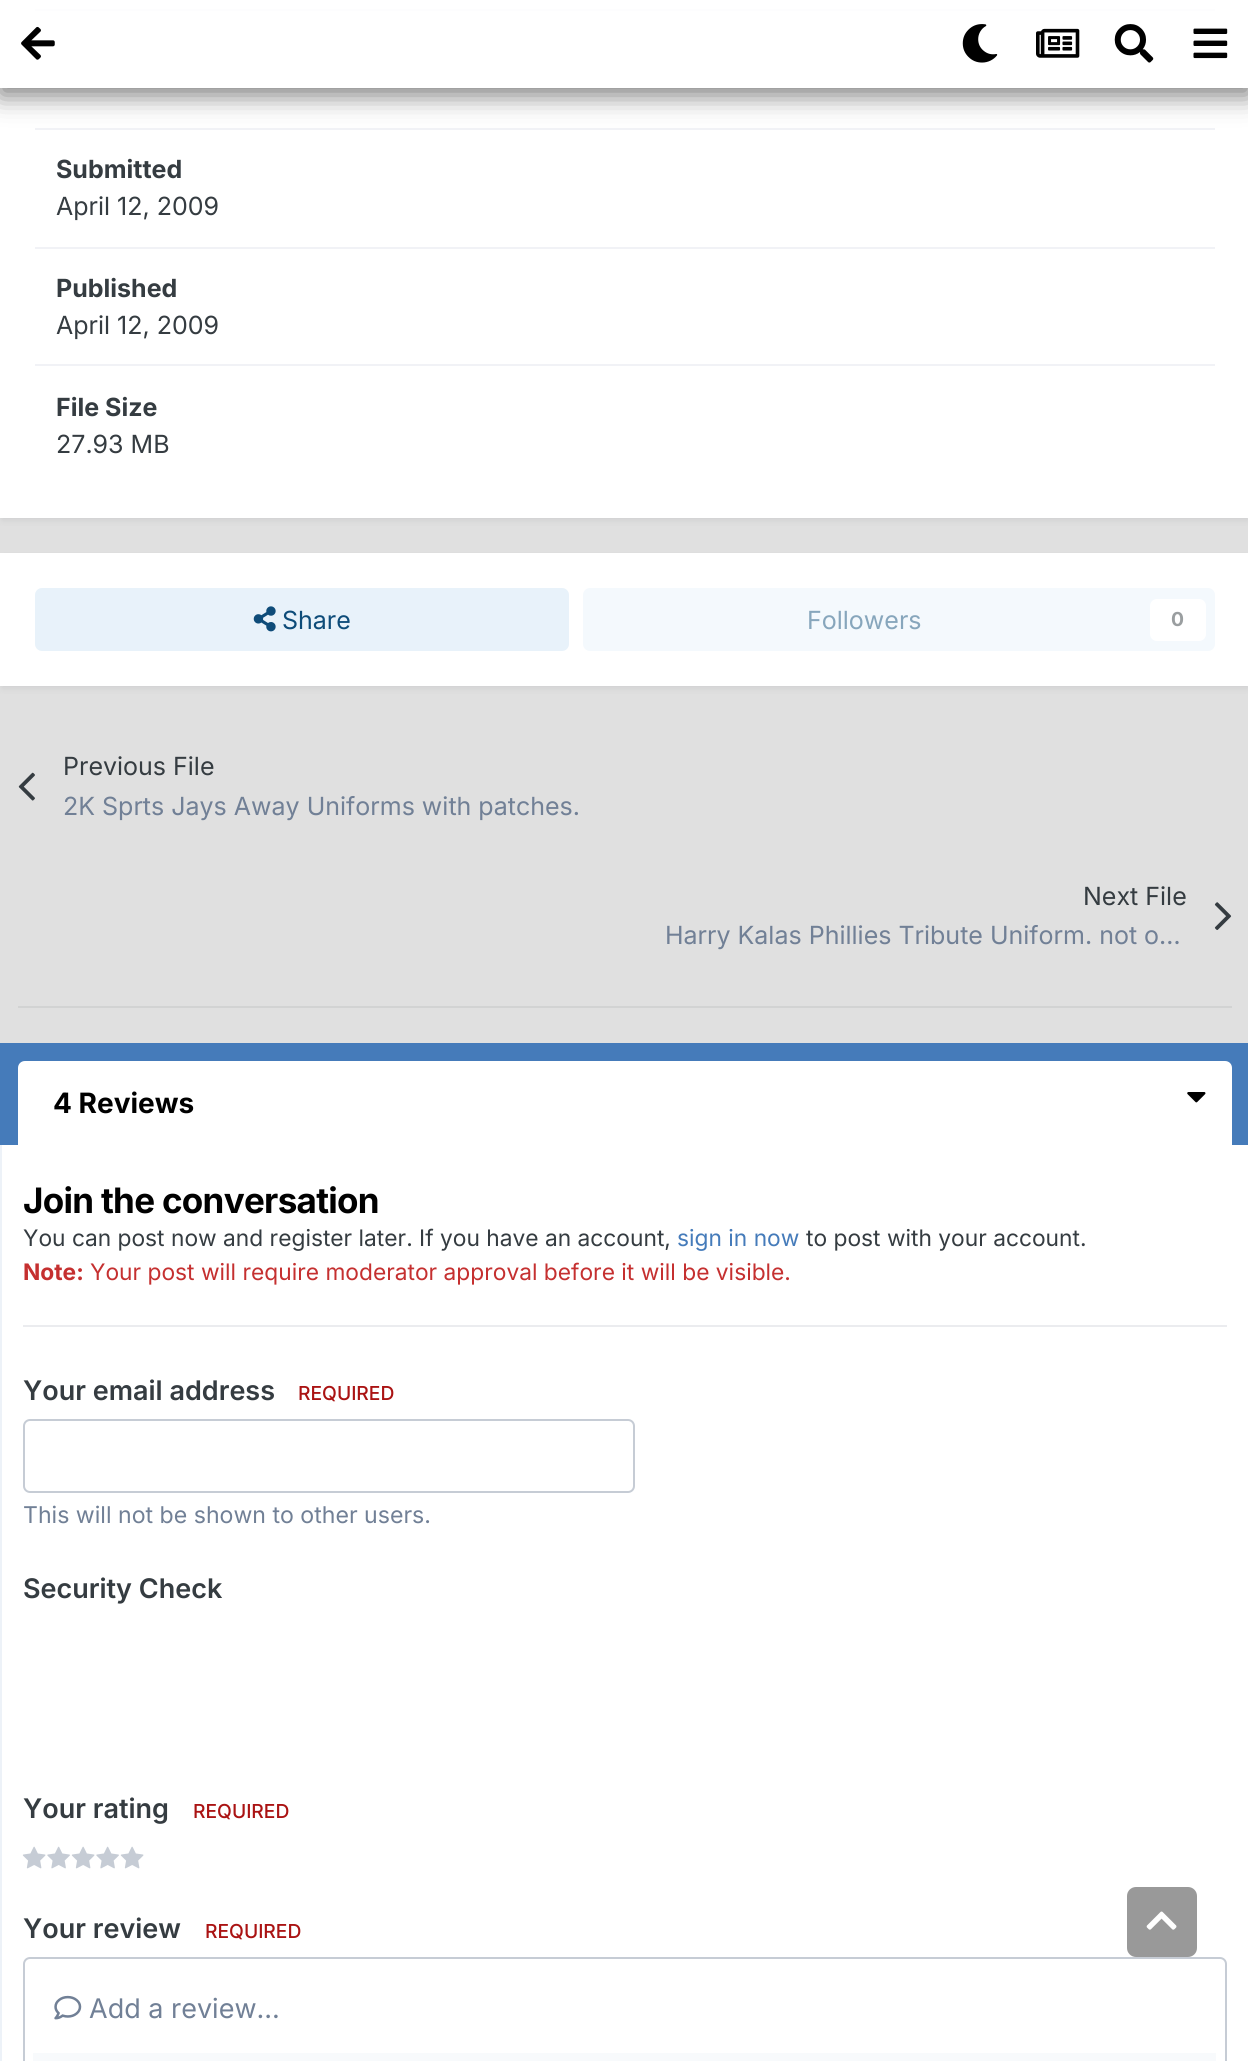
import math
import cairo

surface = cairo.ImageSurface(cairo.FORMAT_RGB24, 1248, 2061)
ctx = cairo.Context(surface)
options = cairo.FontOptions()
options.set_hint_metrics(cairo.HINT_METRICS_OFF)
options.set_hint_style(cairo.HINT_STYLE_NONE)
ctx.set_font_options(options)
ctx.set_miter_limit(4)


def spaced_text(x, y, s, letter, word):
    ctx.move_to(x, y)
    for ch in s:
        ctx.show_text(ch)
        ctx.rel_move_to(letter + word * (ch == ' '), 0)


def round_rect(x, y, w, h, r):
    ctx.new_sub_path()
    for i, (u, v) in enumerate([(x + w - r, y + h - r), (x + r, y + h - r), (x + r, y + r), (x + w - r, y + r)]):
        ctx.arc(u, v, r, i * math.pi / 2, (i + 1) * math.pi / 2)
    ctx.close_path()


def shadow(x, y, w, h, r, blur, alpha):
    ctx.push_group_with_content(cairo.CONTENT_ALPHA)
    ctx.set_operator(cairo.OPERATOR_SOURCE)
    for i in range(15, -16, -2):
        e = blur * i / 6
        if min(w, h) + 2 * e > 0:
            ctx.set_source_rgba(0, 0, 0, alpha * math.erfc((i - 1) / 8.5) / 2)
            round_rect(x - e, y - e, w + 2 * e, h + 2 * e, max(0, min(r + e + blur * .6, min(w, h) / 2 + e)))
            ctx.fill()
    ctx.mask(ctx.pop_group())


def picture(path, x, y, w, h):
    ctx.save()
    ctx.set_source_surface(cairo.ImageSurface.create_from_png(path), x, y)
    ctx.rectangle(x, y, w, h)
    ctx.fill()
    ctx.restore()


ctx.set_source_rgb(0.878, 0.878, 0.878)
ctx.paint()
ctx.set_source_rgb(0.153, 0.18, 0.212)
shadow(2, -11, 1246, 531, 0, 3.5, 0.1)
ctx.set_source_rgb(1, 1, 1)
ctx.rectangle(0, 0, 1248, 518)
ctx.fill()
ctx.set_source_rgb(0.945, 0.949, 0.961)
ctx.rectangle(35, 9, 1180, 2)
ctx.fill()
ctx.rectangle(35, 128, 1180, 2)
ctx.fill()
ctx.save()
ctx.set_fill_rule(cairo.FILL_RULE_EVEN_ODD)
ctx.new_path()
ctx.move_to(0, 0)
ctx.line_to(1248, 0)
ctx.line_to(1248, 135)
ctx.line_to(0, 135)
ctx.close_path()
ctx.move_to(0, 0)
ctx.line_to(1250, 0)
ctx.line_to(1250, 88)
ctx.line_to(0, 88)
ctx.close_path()
ctx.clip()
ctx.set_source_rgb(0, 0, 0)
shadow(0, 7, 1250, 88, 0, 13, 0.53)
ctx.restore()
ctx.set_source_rgba(1, 1, 1, 0.84)
ctx.rectangle(0, 9, 1248, 79)
ctx.fill()
picture("img1.png", 21, 26, 34, 34)
picture("img2.png", 962, 24, 36, 39)
picture("img3.png", 1036, 28, 44, 30)
picture("img4.png", 1114, 24, 40, 39)
picture("img5.png", 1193, 28, 35, 31)
ctx.set_source_rgb(0.945, 0.949, 0.961)
ctx.rectangle(35, 247, 1180, 2)
ctx.fill()
ctx.select_font_face("Inter", cairo.FONT_SLANT_NORMAL, cairo.FONT_WEIGHT_BOLD)
ctx.set_font_size(25)
ctx.set_source_rgb(0.208, 0.235, 0.255)
ctx.move_to(56, 178)
ctx.show_text("Submitted")
ctx.select_font_face("Inter")
ctx.move_to(56, 215)
ctx.show_text("April 12, 2009")
ctx.set_source_rgb(0.945, 0.949, 0.961)
ctx.rectangle(35, 364, 1180, 2)
ctx.fill()
ctx.select_font_face("Inter", cairo.FONT_SLANT_NORMAL, cairo.FONT_WEIGHT_BOLD)
ctx.set_source_rgb(0.208, 0.235, 0.255)
ctx.move_to(56, 297)
ctx.show_text("Published")
ctx.select_font_face("Inter")
ctx.move_to(56, 334)
ctx.show_text("April 12, 2009")
ctx.select_font_face("Inter", cairo.FONT_SLANT_NORMAL, cairo.FONT_WEIGHT_BOLD)
ctx.move_to(56, 416)
ctx.show_text("File Size")
ctx.select_font_face("Inter")
ctx.move_to(56, 453)
ctx.show_text("27.93 MB")
ctx.set_source_rgb(0.153, 0.18, 0.212)
shadow(2, 558, 1246, 130, 0, 3.5, 0.1)
ctx.set_source_rgb(1, 1, 1)
ctx.rectangle(0, 553, 1248, 133)
ctx.fill()
ctx.set_source_rgb(0.91, 0.949, 0.98)
round_rect(35, 588, 534, 63, 7)
ctx.fill()
picture("img6.png", 253, 606, 23, 26)
ctx.set_source_rgb(0.055, 0.298, 0.475)
ctx.move_to(282, 629)
ctx.show_text("Share")
ctx.set_source_rgb(0.957, 0.976, 0.992)
round_rect(583, 588, 632, 63, 7)
ctx.fill()
ctx.set_source_rgb(0.529, 0.651, 0.737)
ctx.move_to(807, 629)
ctx.show_text("Followers")
ctx.set_source_rgb(1, 1, 1)
round_rect(1150, 599, 56, 42, 7)
ctx.fill()
ctx.select_font_face("Inter", cairo.FONT_SLANT_NORMAL, cairo.FONT_WEIGHT_BOLD)
ctx.set_font_size(19.25)
ctx.set_source_rgb(0.604, 0.62, 0.627)
ctx.move_to(1171, 626)
ctx.show_text("0")
ctx.select_font_face("Inter")
ctx.set_font_size(25)
ctx.set_source_rgb(0.208, 0.235, 0.255)
ctx.move_to(63, 775)
ctx.show_text("Previous File")
picture("img7.png", 18, 772, 17, 29)
ctx.set_source_rgb(0.443, 0.502, 0.588)
ctx.move_to(63, 815)
ctx.show_text("2K Sprts Jays Away Uniforms with patches.")
ctx.set_source_rgb(0.208, 0.235, 0.255)
ctx.move_to(1083, 905)
ctx.show_text("Next File")
picture("img8.png", 1214, 902, 18, 28)
ctx.set_source_rgb(0.443, 0.502, 0.588)
ctx.move_to(665, 944)
ctx.show_text("Harry Kalas Phillies Tribute Uniform. not o…")
ctx.set_source_rgb(0.824, 0.827, 0.827)
ctx.rectangle(18, 1006, 1214, 2)
ctx.fill()
ctx.set_source_rgb(0.271, 0.482, 0.729)
ctx.rectangle(0, 1043, 1248, 102)
ctx.fill()
ctx.set_source_rgb(1, 1, 1)
ctx.new_path()
ctx.move_to(25, 1061)
ctx.line_to(1225, 1061)
ctx.curve_to(1229, 1061, 1232, 1064, 1232, 1068)
ctx.line_to(1232, 1145)
ctx.line_to(18, 1145)
ctx.line_to(18, 1068)
ctx.curve_to(18, 1064, 21, 1061, 25, 1061)
ctx.close_path()
ctx.fill()
ctx.select_font_face("Inter", cairo.FONT_SLANT_NORMAL, cairo.FONT_WEIGHT_BOLD)
ctx.set_font_size(28)
ctx.set_source_rgb(0, 0, 0)
ctx.move_to(53, 1113)
ctx.show_text("4 Reviews")
picture("img9.png", 1187, 1092, 19, 11)
ctx.set_source_rgb(1, 1, 1)
ctx.rectangle(2, 1145, 1246, 916)
ctx.fill()
ctx.set_source_rgb(0.929, 0.949, 0.969)
ctx.rectangle(0, 1145, 2, 916)
ctx.fill()
ctx.set_source_rgb(0.918, 0.925, 0.937)
ctx.rectangle(23, 1325, 1204, 2)
ctx.fill()
ctx.set_font_size(35)
ctx.set_source_rgb(0, 0, 0)
spaced_text(23, 1213, "Join the conversation", -0.7, 0)
ctx.select_font_face("Inter")
ctx.set_font_size(22.75)
ctx.set_source_rgb(0.208, 0.235, 0.255)
ctx.move_to(23, 1246)
ctx.show_text("You can post now and register later. If you have an account,")
ctx.set_source_rgb(0.271, 0.482, 0.729)
ctx.move_to(677, 1246)
ctx.show_text("sign in now")
ctx.set_source_rgb(0.208, 0.235, 0.255)
ctx.move_to(806, 1246)
ctx.show_text("to post with your account.")
ctx.select_font_face("Inter", cairo.FONT_SLANT_NORMAL, cairo.FONT_WEIGHT_BOLD)
ctx.set_source_rgb(0.773, 0.188, 0.188)
ctx.move_to(23, 1280)
ctx.show_text("Note:")
ctx.select_font_face("Inter")
ctx.move_to(90, 1280)
ctx.show_text("Your post will require moderator approval before it will be visible.")
ctx.select_font_face("Inter SemiBold")
ctx.set_font_size(27)
ctx.set_source_rgb(0.208, 0.235, 0.255)
ctx.move_to(23, 1400)
ctx.show_text("Your email address")
ctx.select_font_face("Inter Medium")
ctx.set_font_size(19.25)
ctx.set_source_rgb(0.667, 0.078, 0.078)
ctx.move_to(298, 1400)
ctx.show_text("REQUIRED")
round_rect(24, 1420, 610, 72, 6)
ctx.set_source_rgb(0.776, 0.8, 0.835)
ctx.stroke()
ctx.select_font_face("Inter")
ctx.set_font_size(23.1)
ctx.set_source_rgb(0.443, 0.502, 0.588)
ctx.move_to(23, 1523)
ctx.show_text("This will not be shown to other users.")
ctx.select_font_face("Inter SemiBold")
ctx.set_font_size(27)
ctx.set_source_rgb(0.208, 0.235, 0.255)
ctx.move_to(23, 1598)
ctx.show_text("Security Check")
ctx.move_to(23, 1818)
ctx.show_text("Your rating")
ctx.select_font_face("Inter Medium")
ctx.set_font_size(19.25)
ctx.set_source_rgb(0.667, 0.078, 0.078)
ctx.move_to(193, 1818)
ctx.show_text("REQUIRED")
picture("img10.png", 22, 1846, 24, 23)
picture("img11.png", 47, 1846, 23, 23)
picture("img10.png", 71, 1846, 24, 23)
picture("img11.png", 96, 1846, 23, 23)
picture("img10.png", 120, 1846, 24, 23)
ctx.select_font_face("Inter SemiBold")
ctx.set_font_size(27)
ctx.set_source_rgb(0.208, 0.235, 0.255)
ctx.move_to(23, 1938)
ctx.show_text("Your review")
ctx.select_font_face("Inter Medium")
ctx.set_font_size(19.25)
ctx.set_source_rgb(0.667, 0.078, 0.078)
ctx.move_to(205, 1938)
ctx.show_text("REQUIRED")
round_rect(24, 1958, 1202, 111, 6)
ctx.set_source_rgb(0.776, 0.8, 0.835)
ctx.stroke()
picture("img12.png", 54, 1995, 28, 25)
ctx.select_font_face("Inter")
ctx.set_font_size(27)
ctx.set_source_rgb(0.443, 0.502, 0.588)
ctx.move_to(89, 2018)
ctx.show_text("Add a review...")
ctx.set_source_rgb(0.969, 0.98, 0.988)
ctx.rectangle(33, 2053, 1183, 8)
ctx.fill()
ctx.set_source_rgb(0.6, 0.6, 0.6)
round_rect(1127, 1887, 70, 70, 9)
ctx.fill()
picture("img13.png", 1146, 1911, 31, 19)
surface.write_to_png("page.png")
